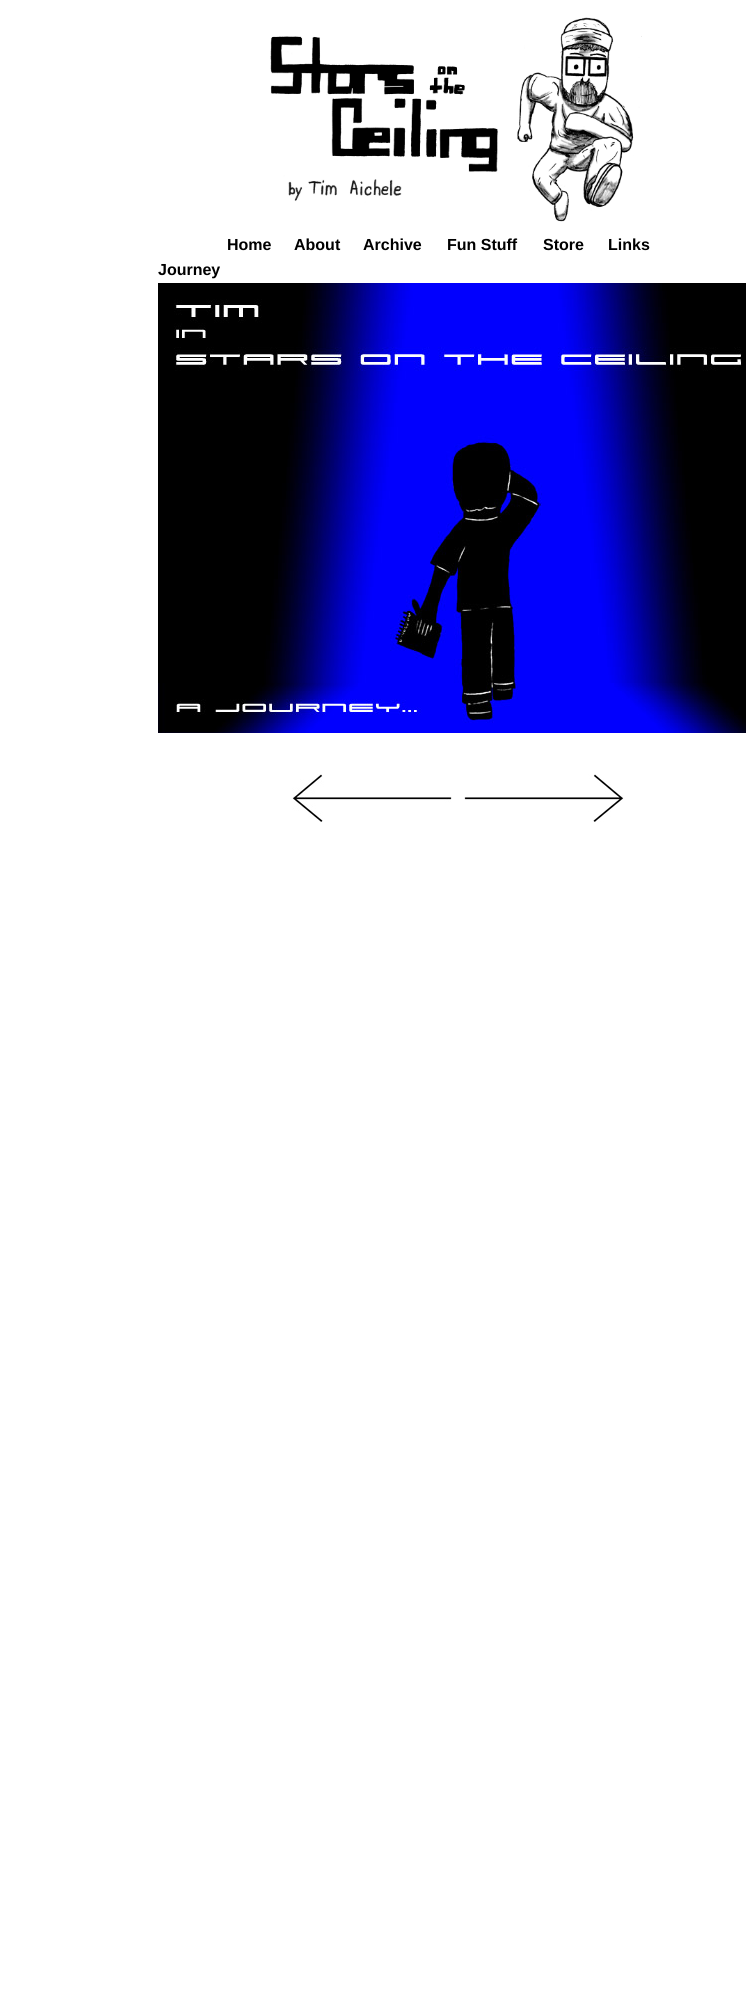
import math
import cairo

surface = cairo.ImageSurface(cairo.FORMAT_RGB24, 746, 2013)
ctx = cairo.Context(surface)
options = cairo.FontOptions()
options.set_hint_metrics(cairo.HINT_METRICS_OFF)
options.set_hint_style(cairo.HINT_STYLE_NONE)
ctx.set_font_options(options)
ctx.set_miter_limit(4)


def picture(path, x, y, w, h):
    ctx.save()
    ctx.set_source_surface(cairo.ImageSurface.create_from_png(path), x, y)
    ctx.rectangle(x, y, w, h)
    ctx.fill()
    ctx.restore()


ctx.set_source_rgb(1, 1, 1)
ctx.paint()
picture("img1.png", 270, 17, 372, 205)
ctx.select_font_face("Liberation Sans", cairo.FONT_SLANT_NORMAL, cairo.FONT_WEIGHT_BOLD)
ctx.set_font_size(16)
ctx.set_source_rgb(0, 0, 0)
ctx.move_to(227, 250)
ctx.show_text("Home")
ctx.move_to(294, 250)
ctx.show_text("About")
ctx.move_to(363, 250)
ctx.show_text("Archive")
ctx.move_to(447, 250)
ctx.show_text("Fun Stuff")
ctx.move_to(543, 250)
ctx.show_text("Store")
ctx.move_to(608, 250)
ctx.show_text("Links")
ctx.move_to(158, 275)
ctx.show_text("Journey")
picture("img2.png", 158, 283, 588, 450)
picture("img3.png", 292, 774, 160, 48)
picture("img4.png", 464, 774, 160, 48)
surface.write_to_png("page.png")
